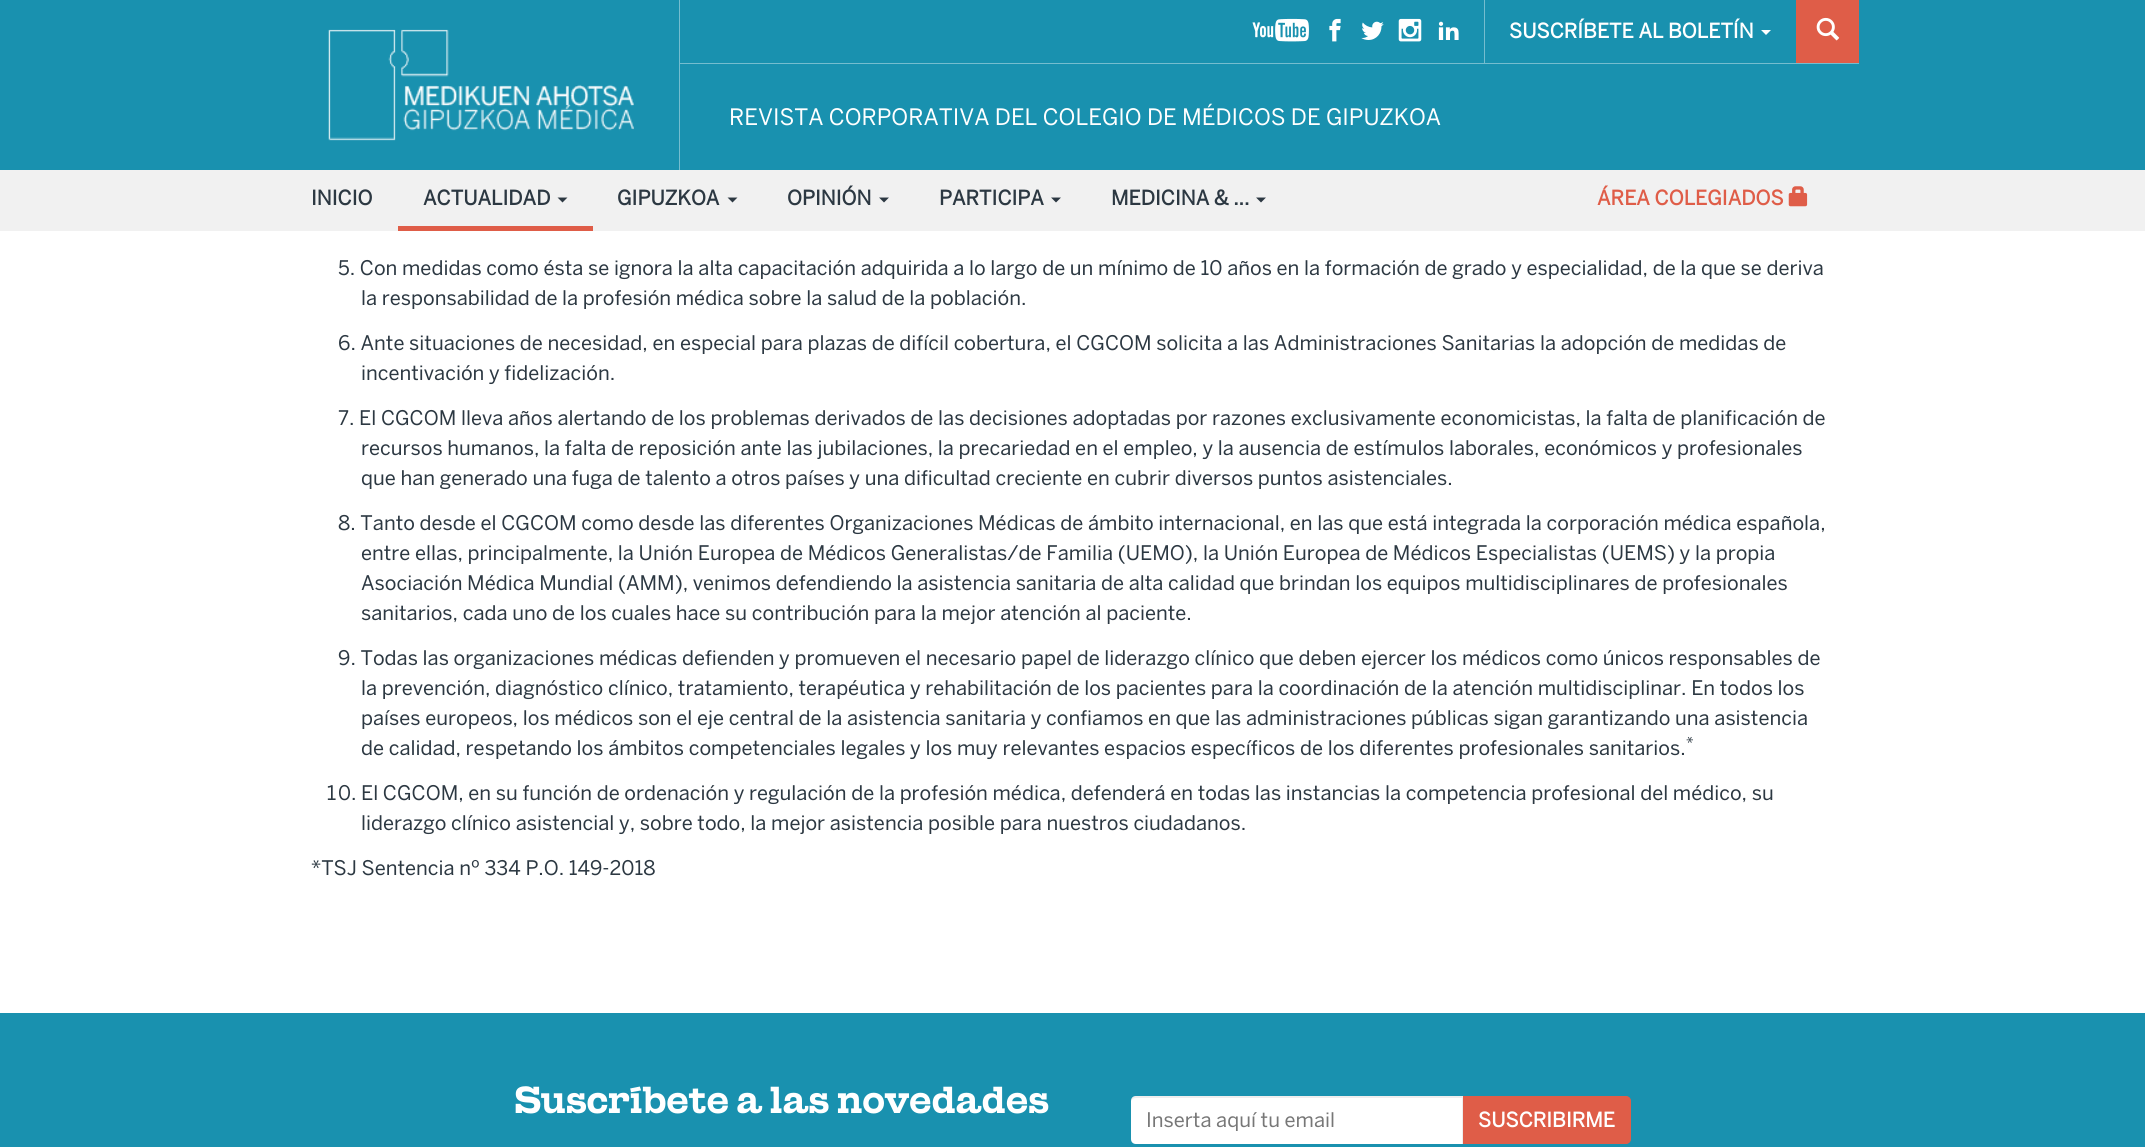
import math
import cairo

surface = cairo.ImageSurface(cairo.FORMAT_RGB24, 2145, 1147)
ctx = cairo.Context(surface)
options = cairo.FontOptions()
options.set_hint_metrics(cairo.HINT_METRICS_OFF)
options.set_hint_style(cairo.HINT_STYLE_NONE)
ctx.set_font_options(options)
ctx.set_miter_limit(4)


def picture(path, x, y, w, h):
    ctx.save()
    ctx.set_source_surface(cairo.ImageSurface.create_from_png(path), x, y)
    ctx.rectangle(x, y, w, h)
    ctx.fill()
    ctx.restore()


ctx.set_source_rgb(1, 1, 1)
ctx.paint()
ctx.set_source_rgb(0.098, 0.569, 0.686)
ctx.rectangle(0, 0, 2145, 170)
ctx.fill()
ctx.set_source_rgb(0.459, 0.741, 0.812)
ctx.rectangle(679, 0, 1, 170)
ctx.fill()
picture("img1.png", 328, 29, 306, 112)
ctx.rectangle(680, 63, 1179, 1)
ctx.fill()
picture("img2.png", 1252, 18, 57, 24)
picture("img3.png", 1329, 18, 12, 24)
picture("img4.png", 1361, 21, 23, 19)
picture("img5.png", 1398, 18, 24, 24)
picture("img6.png", 1438, 21, 21, 19)
ctx.rectangle(1484, 0, 1, 63)
ctx.fill()
ctx.select_font_face("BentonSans", cairo.FONT_SLANT_NORMAL, cairo.FONT_WEIGHT_BOLD)
ctx.set_font_size(20)
ctx.set_source_rgb(1, 1, 1)
ctx.move_to(1509, 38)
ctx.show_text("SUSCRÍBETE AL BOLETÍN")
ctx.new_path()
ctx.move_to(1761, 30)
ctx.line_to(1771, 30)
ctx.line_to(1766, 35)
ctx.close_path()
ctx.fill()
ctx.set_source_rgb(0.875, 0.365, 0.282)
ctx.rectangle(1796, 0, 63, 63)
ctx.fill()
picture("img7.png", 1816, 17, 24, 24)
ctx.select_font_face("BentonSans")
ctx.set_font_size(22.5)
ctx.set_source_rgb(1, 1, 1)
ctx.move_to(729, 125)
ctx.show_text("REVISTA CORPORATIVA DEL COLEGIO DE MÉDICOS DE GIPUZKOA")
ctx.set_source_rgb(0.945, 0.945, 0.945)
ctx.rectangle(0, 170, 2145, 61)
ctx.fill()
ctx.select_font_face("BentonSans", cairo.FONT_SLANT_NORMAL, cairo.FONT_WEIGHT_BOLD)
ctx.set_font_size(20)
ctx.set_source_rgb(0.173, 0.22, 0.259)
ctx.move_to(311, 205)
ctx.show_text("INICIO")
ctx.set_source_rgb(0.875, 0.365, 0.282)
ctx.rectangle(398, 226, 195, 5)
ctx.fill()
ctx.set_source_rgb(0.173, 0.22, 0.259)
ctx.move_to(423, 205)
ctx.show_text("ACTUALIDAD")
ctx.new_path()
ctx.move_to(557.5, 197.5)
ctx.line_to(567.5, 197.5)
ctx.line_to(562.5, 202.5)
ctx.close_path()
ctx.fill()
ctx.move_to(617, 205)
ctx.show_text("GIPUZKOA")
ctx.new_path()
ctx.move_to(727.5, 197.5)
ctx.line_to(737.5, 197.5)
ctx.line_to(732.5, 202.5)
ctx.close_path()
ctx.fill()
ctx.move_to(787, 205)
ctx.show_text("OPINIÓN")
ctx.new_path()
ctx.move_to(879, 197.5)
ctx.line_to(889, 197.5)
ctx.line_to(884, 202.5)
ctx.close_path()
ctx.fill()
ctx.move_to(939, 205)
ctx.show_text("PARTICIPA")
ctx.new_path()
ctx.move_to(1051, 197.5)
ctx.line_to(1061, 197.5)
ctx.line_to(1056, 202.5)
ctx.close_path()
ctx.fill()
ctx.move_to(1111, 205)
ctx.show_text("MEDICINA & ...")
ctx.new_path()
ctx.move_to(1256, 197.5)
ctx.line_to(1266, 197.5)
ctx.line_to(1261, 202.5)
ctx.close_path()
ctx.fill()
ctx.set_source_rgb(0.875, 0.365, 0.282)
ctx.move_to(1597, 205)
ctx.show_text("ÁREA COLEGIADOS")
picture("img8.png", 1788, 186, 20, 21)
ctx.select_font_face("BentonSans")
ctx.set_source_rgb(0.173, 0.22, 0.259)
ctx.move_to(338, 275)
ctx.show_text("5. Con medidas como ésta se ignora la alta capacitación adquirida a lo largo de un mínimo de 10 años en la formación de grado y especialidad, de la que se deriva")
ctx.move_to(361, 305)
ctx.show_text("la responsabilidad de la profesión médica sobre la salud de la población.")
ctx.move_to(338, 350)
ctx.show_text("6. Ante situaciones de necesidad, en especial para plazas de difícil cobertura, el CGCOM solicita a las Administraciones Sanitarias la adopción de medidas de")
ctx.move_to(361, 380)
ctx.show_text("incentivación y fidelización.")
ctx.move_to(338, 425)
ctx.show_text("7. El CGCOM lleva años alertando de los problemas derivados de las decisiones adoptadas por razones exclusivamente economicistas, la falta de planificación de")
ctx.move_to(361, 455)
ctx.show_text("recursos humanos, la falta de reposición ante las jubilaciones, la precariedad en el empleo, y la ausencia de estímulos laborales, económicos y profesionales")
ctx.move_to(361, 485)
ctx.show_text("que han generado una fuga de talento a otros países y una dificultad creciente en cubrir diversos puntos asistenciales.")
ctx.move_to(338, 530)
ctx.show_text("8. Tanto desde el CGCOM como desde las diferentes Organizaciones Médicas de ámbito internacional, en las que está integrada la corporación médica española,")
ctx.move_to(361, 560)
ctx.show_text("entre ellas, principalmente, la Unión Europea de Médicos Generalistas/de Familia (UEMO), la Unión Europea de Médicos Especialistas (UEMS) y la propia")
ctx.move_to(361, 590)
ctx.show_text("Asociación Médica Mundial (AMM), venimos defendiendo la asistencia sanitaria de alta calidad que brindan los equipos multidisciplinares de profesionales")
ctx.move_to(361, 620)
ctx.show_text("sanitarios, cada uno de los cuales hace su contribución para la mejor atención al paciente.")
ctx.move_to(338, 665)
ctx.show_text("9. Todas las organizaciones médicas defienden y promueven el necesario papel de liderazgo clínico que deben ejercer los médicos como únicos responsables de")
ctx.move_to(361, 695)
ctx.show_text("la prevención, diagnóstico clínico, tratamiento, terapéutica y rehabilitación de los pacientes para la coordinación de la atención multidisciplinar. En todos los")
ctx.move_to(361, 725)
ctx.show_text("países europeos, los médicos son el eje central de la asistencia sanitaria y confiamos en que las administraciones públicas sigan garantizando una asistencia")
ctx.move_to(361, 755)
ctx.show_text("de calidad, respetando los ámbitos competenciales legales y los muy relevantes espacios específicos de los diferentes profesionales sanitarios.")
ctx.set_font_size(15)
ctx.move_to(1686, 748)
ctx.show_text("*")
ctx.select_font_face("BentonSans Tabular")
ctx.set_font_size(20)
ctx.move_to(325, 800)
ctx.show_text("10.")
ctx.select_font_face("BentonSans")
ctx.move_to(361, 800)
ctx.show_text("El CGCOM, en su función de ordenación y regulación de la profesión médica, defenderá en todas las instancias la competencia profesional del médico, su")
ctx.move_to(361, 830)
ctx.show_text("liderazgo clínico asistencial y, sobre todo, la mejor asistencia posible para nuestros ciudadanos.")
ctx.move_to(311, 875)
ctx.show_text("*TSJ Sentencia nº 334 P.O. 149-2018")
ctx.set_source_rgb(0.098, 0.569, 0.686)
ctx.rectangle(0, 1013, 2145, 134)
ctx.fill()
ctx.select_font_face("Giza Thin")
ctx.set_font_size(37.5)
ctx.set_source_rgb(1, 1, 1)
ctx.move_to(515, 1113)
ctx.show_text("Suscríbete a las novedades")
ctx.set_source_rgb(0.875, 0.365, 0.282)
ctx.new_path()
ctx.move_to(1461.5, 1096.5)
ctx.line_to(1626, 1096.5)
ctx.curve_to(1628.5, 1096.5, 1630.5, 1098.5, 1630.5, 1101)
ctx.line_to(1630.5, 1139)
ctx.curve_to(1630.5, 1141.5, 1628.5, 1143.5, 1626, 1143.5)
ctx.line_to(1461.5, 1143.5)
ctx.close_path()
ctx.fill_preserve()
ctx.set_line_width(1)
ctx.stroke()
ctx.set_source_rgb(1, 1, 1)
ctx.new_path()
ctx.move_to(1136, 1096)
ctx.line_to(1463, 1096)
ctx.line_to(1463, 1144)
ctx.line_to(1136, 1144)
ctx.curve_to(1133, 1144, 1131, 1142, 1131, 1139)
ctx.line_to(1131, 1101)
ctx.curve_to(1131, 1098, 1133, 1096, 1136, 1096)
ctx.close_path()
ctx.fill()
ctx.set_source_rgba(0, 0, 0, 0.07)
ctx.new_path()
ctx.move_to(1136, 1098)
ctx.line_to(1462, 1098)
ctx.line_to(1462, 1144)
ctx.line_to(1463, 1144)
ctx.line_to(1463, 1096)
ctx.line_to(1136, 1096)
ctx.curve_to(1133, 1096, 1131, 1099, 1131, 1102)
ctx.curve_to(1131, 1100, 1133, 1098, 1136, 1098)
ctx.close_path()
ctx.fill()
ctx.select_font_face("BentonSans")
ctx.set_font_size(20)
ctx.set_source_rgb(0.467, 0.467, 0.467)
ctx.move_to(1146, 1127)
ctx.show_text("Inserta aquí tu email")
ctx.select_font_face("BentonSans", cairo.FONT_SLANT_NORMAL, cairo.FONT_WEIGHT_BOLD)
ctx.set_source_rgb(1, 1, 1)
ctx.move_to(1478, 1127)
ctx.show_text("SUSCRIBIRME")
surface.write_to_png("page.png")
